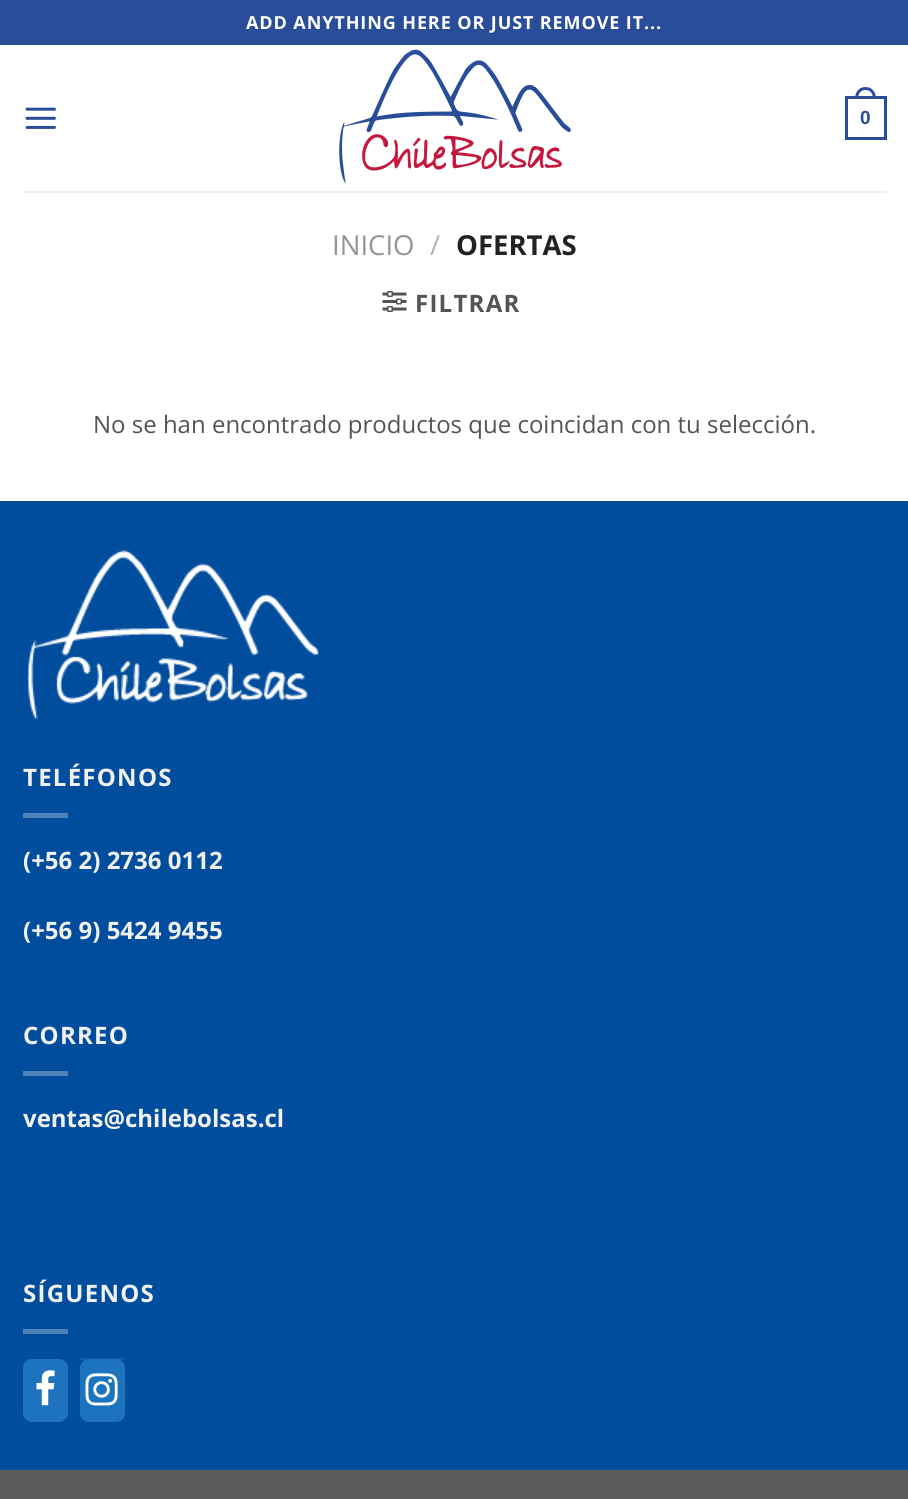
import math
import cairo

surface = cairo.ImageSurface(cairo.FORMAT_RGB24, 908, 1499)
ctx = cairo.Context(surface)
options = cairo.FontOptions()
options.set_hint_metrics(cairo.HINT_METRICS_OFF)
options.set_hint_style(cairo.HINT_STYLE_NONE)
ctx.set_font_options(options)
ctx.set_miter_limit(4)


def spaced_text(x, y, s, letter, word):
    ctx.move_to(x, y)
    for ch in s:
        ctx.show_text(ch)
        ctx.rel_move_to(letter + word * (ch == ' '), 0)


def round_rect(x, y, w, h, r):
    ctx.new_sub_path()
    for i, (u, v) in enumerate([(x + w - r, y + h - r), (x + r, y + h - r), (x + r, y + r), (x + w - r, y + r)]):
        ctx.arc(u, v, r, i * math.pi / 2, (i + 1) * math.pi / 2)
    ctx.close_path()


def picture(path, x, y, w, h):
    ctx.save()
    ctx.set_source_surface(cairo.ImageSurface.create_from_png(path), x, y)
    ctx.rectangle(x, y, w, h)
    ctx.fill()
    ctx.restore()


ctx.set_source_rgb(0.357, 0.357, 0.357)
ctx.paint()
ctx.set_source_rgb(1, 1, 1)
ctx.rectangle(0, 45, 908, 456)
ctx.fill()
ctx.set_source_rgb(0.165, 0.302, 0.6)
ctx.rectangle(0, 0, 908, 45)
ctx.fill()
ctx.select_font_face("Open Sans", cairo.FONT_SLANT_NORMAL, cairo.FONT_WEIGHT_BOLD)
ctx.set_font_size(18)
ctx.set_source_rgb(1, 1, 1)
spaced_text(246, 29, "ADD ANYTHING HERE OR JUST REMOVE IT...", 0.9, 0)
picture("img1.png", 25, 107, 31, 22)
picture("img2.png", 339, 49, 232, 135)
ctx.rectangle(846.5, 97.5, 39, 41)
ctx.set_source_rgb(0.165, 0.302, 0.6)
ctx.set_line_width(3)
ctx.stroke()
ctx.set_fill_rule(cairo.FILL_RULE_EVEN_ODD)
ctx.new_path()
ctx.move_to(865.5, 87)
ctx.curve_to(872.5, 87, 876, 92.5, 876, 99)
ctx.line_to(855, 99)
ctx.curve_to(855, 92.5, 858.5, 87, 865.5, 87)
ctx.close_path()
ctx.move_to(865.5, 90)
ctx.curve_to(871, 90, 873, 94.5, 873, 99)
ctx.line_to(858, 99)
ctx.curve_to(858, 94.5, 860, 90, 865.5, 90)
ctx.close_path()
ctx.fill()
ctx.select_font_face("Liberation Sans", cairo.FONT_SLANT_NORMAL, cairo.FONT_WEIGHT_BOLD)
ctx.set_font_size(19)
ctx.move_to(860, 124)
ctx.show_text("0")
ctx.set_source_rgb(0.933, 0.933, 0.933)
ctx.rectangle(23, 191, 864, 2)
ctx.fill()
ctx.select_font_face("Open Sans")
ctx.set_font_size(27.5)
ctx.set_source_rgb(0.58, 0.58, 0.58)
ctx.move_to(332, 255)
ctx.show_text("INICIO")
ctx.set_source_rgb(0.698, 0.698, 0.698)
ctx.move_to(430, 255)
ctx.show_text("/")
ctx.select_font_face("Open Sans", cairo.FONT_SLANT_NORMAL, cairo.FONT_WEIGHT_BOLD)
ctx.set_source_rgb(0.133, 0.133, 0.133)
ctx.move_to(456, 255)
ctx.show_text("OFERTAS")
picture("img3.png", 382, 291, 25, 21)
ctx.set_font_size(24)
ctx.set_source_rgb(0.329, 0.329, 0.329)
spaced_text(415, 312, "FILTRAR", 1.25, 0)
ctx.select_font_face("Open Sans")
ctx.move_to(93, 433)
ctx.show_text("No se han encontrado productos que coincidan con tu selección.")
ctx.set_source_rgb(0, 0.302, 0.616)
ctx.rectangle(0, 503, 908, 967)
ctx.fill()
ctx.set_source_rgb(0, 0.286, 0.584)
ctx.rectangle(0, 501, 908, 2)
ctx.fill()
picture("img4.png", 27, 550, 292, 170)
ctx.select_font_face("Open Sans", cairo.FONT_SLANT_NORMAL, cairo.FONT_WEIGHT_BOLD)
ctx.set_source_rgb(0.945, 0.945, 0.945)
spaced_text(23, 786, "TELÉFONOS", 1.25, 0)
ctx.set_source_rgb(0.302, 0.51, 0.729)
ctx.rectangle(23, 813, 45, 5)
ctx.fill()
ctx.set_source_rgb(0.945, 0.945, 0.945)
ctx.move_to(23, 869)
ctx.show_text("(+56 2) 2736 0112")
ctx.move_to(23, 939)
ctx.show_text("(+56 9) 5424 9455")
spaced_text(23, 1044, "CORREO", 1.25, 0)
ctx.set_source_rgb(0.302, 0.51, 0.729)
ctx.rectangle(23, 1071, 45, 5)
ctx.fill()
ctx.set_source_rgb(0.945, 0.945, 0.945)
ctx.move_to(23, 1127)
ctx.show_text("ventas@chilebolsas.cl")
spaced_text(23, 1302, "SÍGUENOS", 1.25, 0)
ctx.set_source_rgb(0.302, 0.51, 0.729)
ctx.rectangle(23, 1329, 45, 5)
ctx.fill()
ctx.set_source_rgb(0.118, 0.451, 0.745)
round_rect(23, 1359, 45, 63, 9)
ctx.fill()
picture("img5.png", 36, 1370, 19, 36)
ctx.set_source_rgb(0.078, 0.357, 0.647)
ctx.rectangle(80, 1358, 45, 2)
ctx.fill()
ctx.set_source_rgb(0.118, 0.451, 0.745)
round_rect(80, 1359, 45, 63, 9)
ctx.fill()
picture("img6.png", 85, 1373, 33, 33)
surface.write_to_png("page.png")
